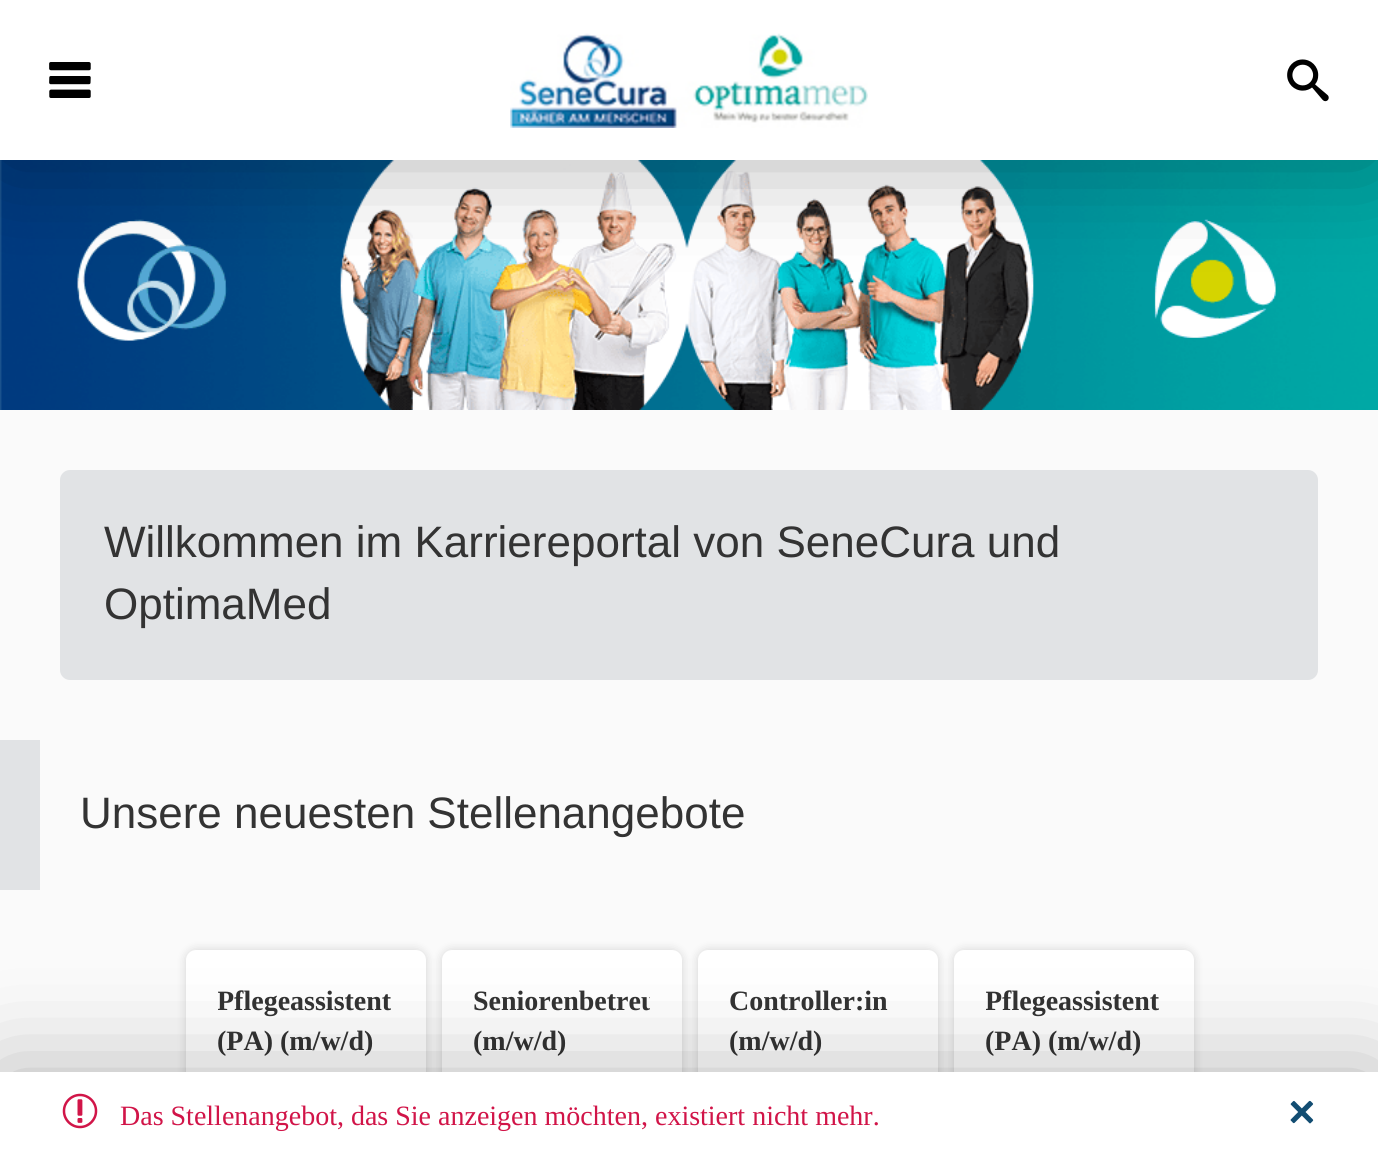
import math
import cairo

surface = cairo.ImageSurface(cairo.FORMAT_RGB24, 1378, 1156)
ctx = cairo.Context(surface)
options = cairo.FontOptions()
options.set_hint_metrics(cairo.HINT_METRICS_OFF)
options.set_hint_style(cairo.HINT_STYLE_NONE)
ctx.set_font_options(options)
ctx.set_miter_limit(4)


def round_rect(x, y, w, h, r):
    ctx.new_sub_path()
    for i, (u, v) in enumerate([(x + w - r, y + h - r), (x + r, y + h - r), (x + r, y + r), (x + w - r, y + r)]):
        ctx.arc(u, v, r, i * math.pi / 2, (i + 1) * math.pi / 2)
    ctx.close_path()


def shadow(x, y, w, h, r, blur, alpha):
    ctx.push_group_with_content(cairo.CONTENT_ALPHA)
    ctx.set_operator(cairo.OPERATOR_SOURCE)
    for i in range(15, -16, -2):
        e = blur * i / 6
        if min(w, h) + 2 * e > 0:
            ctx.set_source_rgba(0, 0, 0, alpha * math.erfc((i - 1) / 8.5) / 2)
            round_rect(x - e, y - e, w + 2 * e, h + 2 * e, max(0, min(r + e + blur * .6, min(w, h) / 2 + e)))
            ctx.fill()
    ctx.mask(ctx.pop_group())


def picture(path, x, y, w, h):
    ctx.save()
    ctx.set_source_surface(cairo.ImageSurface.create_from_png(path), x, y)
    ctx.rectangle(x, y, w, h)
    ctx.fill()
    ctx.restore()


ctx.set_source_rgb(0.98, 0.98, 0.98)
ctx.paint()
picture("img4.png", 0, 160, 1378, 250)
ctx.set_source_rgb(0, 0, 0)
shadow(0, 4, 1378, 160, 0, 50, 0.3)
ctx.set_source_rgb(1, 1, 1)
ctx.rectangle(0, 0, 1378, 160)
ctx.fill()
picture("img1.png", 49, 62, 42, 36)
picture("img2.png", 510, 33, 358, 95)
picture("img3.png", 1287, 59, 42, 43)
ctx.set_source_rgb(0.882, 0.89, 0.898)
round_rect(60, 470, 1258, 210, 10)
ctx.fill()
ctx.select_font_face("Liberation Sans")
ctx.set_font_size(44)
ctx.set_source_rgb(0.2, 0.2, 0.2)
ctx.move_to(104, 557)
ctx.show_text("Willkommen im Karriereportal von SeneCura und")
ctx.move_to(104, 619)
ctx.show_text("OptimaMed")
ctx.set_source_rgb(0.882, 0.89, 0.898)
ctx.rectangle(0, 740, 40, 150)
ctx.fill()
ctx.set_source_rgb(0.2, 0.2, 0.2)
ctx.move_to(80, 828)
ctx.show_text("Unsere neuesten Stellenangebote")
ctx.set_source_rgb(0, 0, 0)
shadow(186, 950, 240, 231, 10, 5, 0.15)
ctx.set_source_rgb(1, 1, 1)
round_rect(187, 951, 238, 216, 9)
ctx.fill_preserve()
ctx.stroke()
ctx.save()
ctx.rectangle(218, 982, 176, 80)
ctx.clip()
ctx.select_font_face("Liberation Serif", cairo.FONT_SLANT_NORMAL, cairo.FONT_WEIGHT_BOLD)
ctx.set_font_size(28)
ctx.set_source_rgb(0.2, 0.2, 0.2)
ctx.move_to(217, 1010)
ctx.show_text("Pflegeassistent")
ctx.restore()
ctx.select_font_face("Liberation Serif", cairo.FONT_SLANT_NORMAL, cairo.FONT_WEIGHT_BOLD)
ctx.set_font_size(28)
ctx.set_source_rgb(0.2, 0.2, 0.2)
ctx.move_to(217, 1050)
ctx.show_text("(PA) (m/w/d)")
ctx.set_source_rgb(0, 0, 0)
shadow(442, 950, 240, 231, 10, 5, 0.15)
ctx.set_source_rgb(1, 1, 1)
round_rect(443, 951, 238, 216, 9)
ctx.fill_preserve()
ctx.stroke()
ctx.save()
ctx.rectangle(474, 982, 176, 80)
ctx.clip()
ctx.set_source_rgb(0.2, 0.2, 0.2)
ctx.move_to(473, 1010)
ctx.show_text("Seniorenbetreu")
ctx.restore()
ctx.set_source_rgb(0.2, 0.2, 0.2)
ctx.move_to(473, 1050)
ctx.show_text("(m/w/d)")
ctx.set_source_rgb(0, 0, 0)
shadow(698, 950, 240, 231, 10, 5, 0.15)
ctx.set_source_rgb(1, 1, 1)
round_rect(699, 951, 238, 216, 9)
ctx.fill_preserve()
ctx.stroke()
ctx.set_source_rgb(0.2, 0.2, 0.2)
ctx.move_to(729, 1010)
ctx.show_text("Controller:in")
ctx.move_to(729, 1050)
ctx.show_text("(m/w/d)")
ctx.set_source_rgb(0, 0, 0)
shadow(954, 950, 240, 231, 10, 5, 0.15)
ctx.set_source_rgb(1, 1, 1)
round_rect(955, 951, 238, 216, 9)
ctx.fill_preserve()
ctx.stroke()
ctx.save()
ctx.rectangle(986, 982, 176, 80)
ctx.clip()
ctx.set_source_rgb(0.2, 0.2, 0.2)
ctx.move_to(985, 1010)
ctx.show_text("Pflegeassistent")
ctx.restore()
ctx.set_source_rgb(0.2, 0.2, 0.2)
ctx.move_to(985, 1050)
ctx.show_text("(PA) (m/w/d)")
ctx.set_source_rgb(0, 0, 0)
shadow(0, 1076, 1378, 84, 0, 50, 0.3)
ctx.set_source_rgb(1, 1, 1)
ctx.rectangle(0, 1072, 1378, 84)
ctx.fill()
picture("img5.png", 62, 1093, 36, 36)
ctx.select_font_face("Liberation Serif")
ctx.set_source_rgb(0.82, 0.082, 0.282)
ctx.move_to(120, 1125)
ctx.show_text("Das Stellenangebot, das Sie anzeigen möchten, existiert nicht mehr.")
picture("img6.png", 1290, 1100, 24, 24)
surface.write_to_png("page.png")
